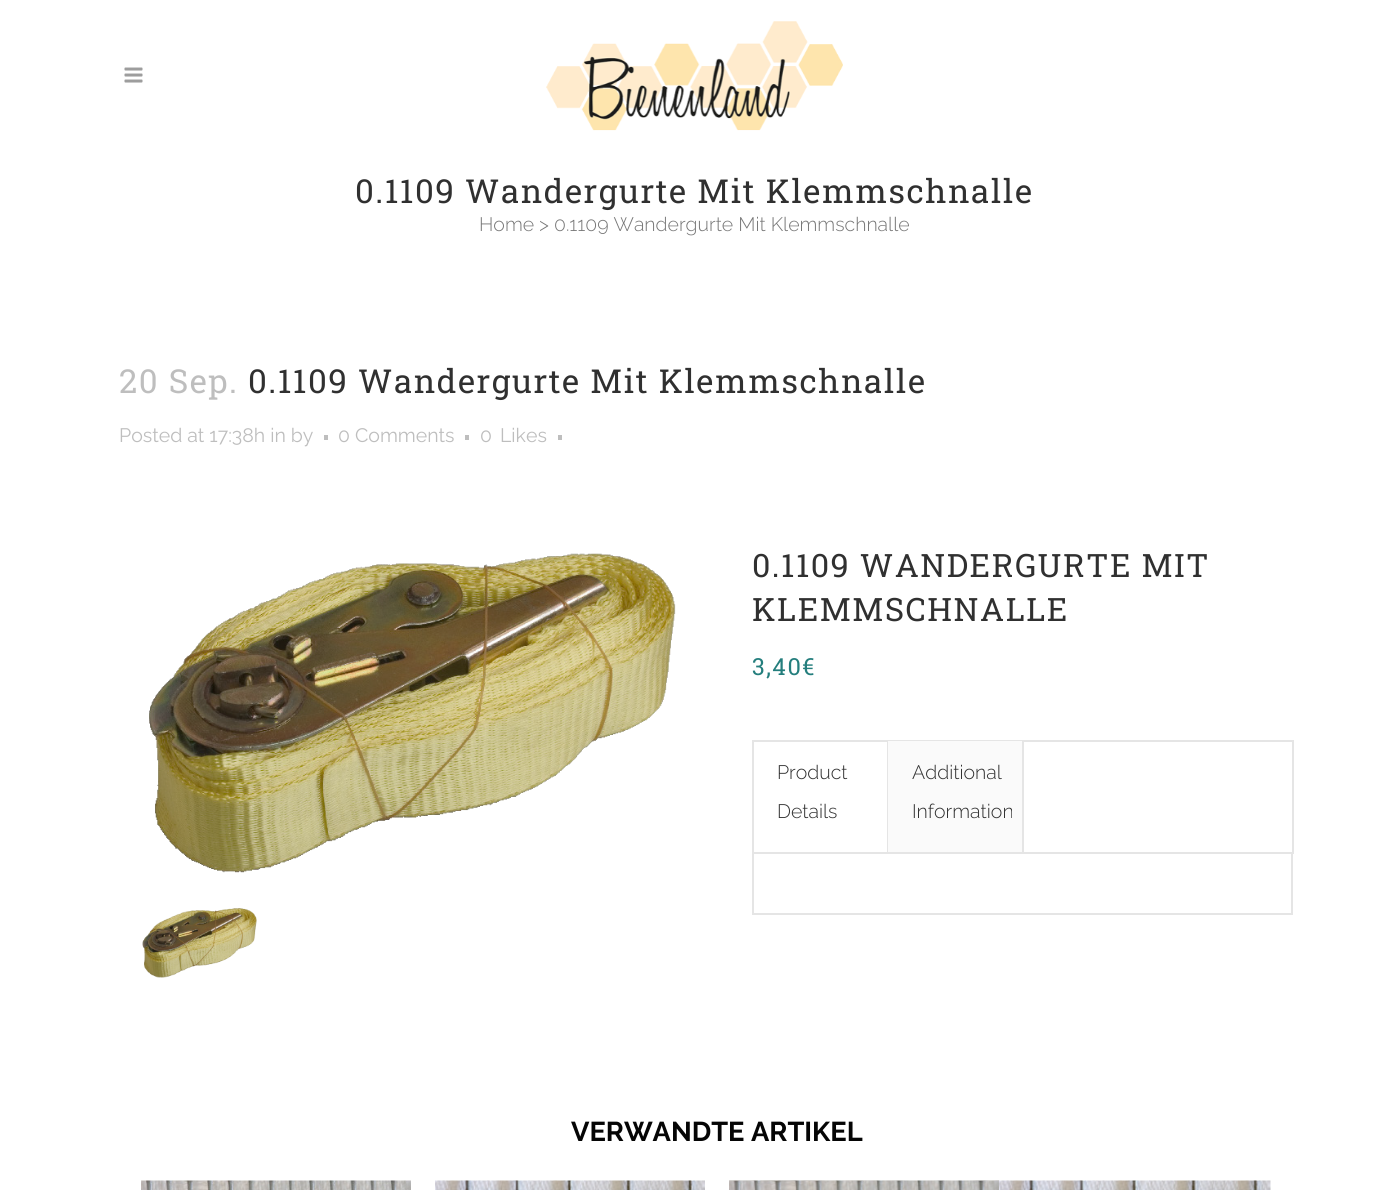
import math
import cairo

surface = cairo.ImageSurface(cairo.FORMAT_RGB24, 1389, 1190)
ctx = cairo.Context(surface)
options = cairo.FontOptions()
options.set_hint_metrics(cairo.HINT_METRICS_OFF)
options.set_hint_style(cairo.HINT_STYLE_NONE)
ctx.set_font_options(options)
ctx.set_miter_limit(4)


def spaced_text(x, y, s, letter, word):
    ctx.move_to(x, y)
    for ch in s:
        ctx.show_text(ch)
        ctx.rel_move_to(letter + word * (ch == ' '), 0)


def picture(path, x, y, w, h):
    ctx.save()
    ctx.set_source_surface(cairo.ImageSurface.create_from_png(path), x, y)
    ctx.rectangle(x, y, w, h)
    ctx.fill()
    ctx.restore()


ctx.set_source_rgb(1, 1, 1)
ctx.paint()
picture("img1.png", 124, 67, 19, 16)
picture("img2.png", 546, 21, 297, 110)
ctx.select_font_face("Roboto Slab")
ctx.set_font_size(33)
ctx.set_source_rgb(0.188, 0.188, 0.188)
spaced_text(355, 203, "0.1109 Wandergurte Mit Klemmschnalle", 1.5, 0)
ctx.select_font_face("Raleway Light")
ctx.set_font_size(19.5)
ctx.set_source_rgb(0.467, 0.467, 0.467)
ctx.move_to(479, 231)
ctx.show_text("Home > 0.1109 Wandergurte Mit Klemmschnalle")
ctx.select_font_face("Roboto Slab")
ctx.set_font_size(33)
ctx.set_source_rgb(0.745, 0.745, 0.745)
spaced_text(119, 393, "20 Sep.", 1.5, 0)
ctx.set_source_rgb(0.188, 0.188, 0.188)
spaced_text(248, 393, "0.1109 Wandergurte Mit Klemmschnalle", 1.5, 0)
ctx.select_font_face("Raleway")
ctx.set_font_size(19.5)
ctx.set_source_rgb(0.745, 0.745, 0.745)
ctx.move_to(119, 442)
ctx.show_text("Posted at 17:38h in by")
ctx.rectangle(324, 435, 4, 5)
ctx.fill()
ctx.move_to(338, 442)
ctx.show_text("0 Comments")
ctx.rectangle(465, 435, 4, 5)
ctx.fill()
ctx.move_to(480, 442)
ctx.show_text("0")
ctx.move_to(500, 442)
ctx.show_text("Likes")
ctx.rectangle(558, 435, 4, 5)
ctx.fill()
picture("img3.png", 149, 553, 527, 320)
picture("img4.png", 142, 908, 115, 70)
ctx.select_font_face("Roboto Slab")
ctx.set_font_size(32.2)
ctx.set_source_rgb(0.188, 0.188, 0.188)
spaced_text(752, 577, "0.1109 WANDERGURTE MIT", 1.5, 0)
spaced_text(752, 621, "KLEMMSCHNALLE", 1.5, 0)
ctx.set_font_size(23.5)
ctx.set_source_rgb(0.141, 0.494, 0.49)
spaced_text(752, 675, "3,40€", 1.5, 0)
ctx.set_source_rgb(0.898, 0.898, 0.898)
ctx.rectangle(752, 740, 541, 2)
ctx.fill()
ctx.rectangle(1292, 740, 2, 114)
ctx.fill()
ctx.rectangle(752, 740, 2, 114)
ctx.fill()
ctx.rectangle(887, 741, 1, 113)
ctx.fill()
ctx.select_font_face("Raleway Light")
ctx.set_font_size(19.5)
ctx.set_source_rgb(0.188, 0.188, 0.188)
ctx.move_to(777, 779)
ctx.show_text("Product")
ctx.move_to(777, 818)
ctx.show_text("Details")
ctx.set_source_rgb(0.98, 0.98, 0.98)
ctx.rectangle(888, 741, 134, 111)
ctx.fill()
ctx.set_source_rgb(0.898, 0.898, 0.898)
ctx.rectangle(1022, 741, 2, 113)
ctx.fill()
ctx.set_source_rgb(0.188, 0.188, 0.188)
ctx.move_to(912, 779)
ctx.show_text("Additional")
ctx.move_to(912, 818)
ctx.show_text("Information")
ctx.rectangle(753, 853, 539, 61)
ctx.set_source_rgb(0.898, 0.898, 0.898)
ctx.stroke()
ctx.select_font_face("Raleway", cairo.FONT_SLANT_NORMAL, cairo.FONT_WEIGHT_BOLD)
ctx.set_font_size(27.25)
ctx.set_source_rgb(0.02, 0.02, 0.02)
ctx.move_to(571, 1141)
ctx.show_text("VERWANDTE ARTIKEL")
picture("img5.png", 141, 1180, 270, 10)
picture("img6.png", 435, 1180, 270, 10)
picture("img7.png", 729, 1180, 270, 10)
picture("img8.png", 999, 1180, 272, 10)
surface.write_to_png("page.png")
